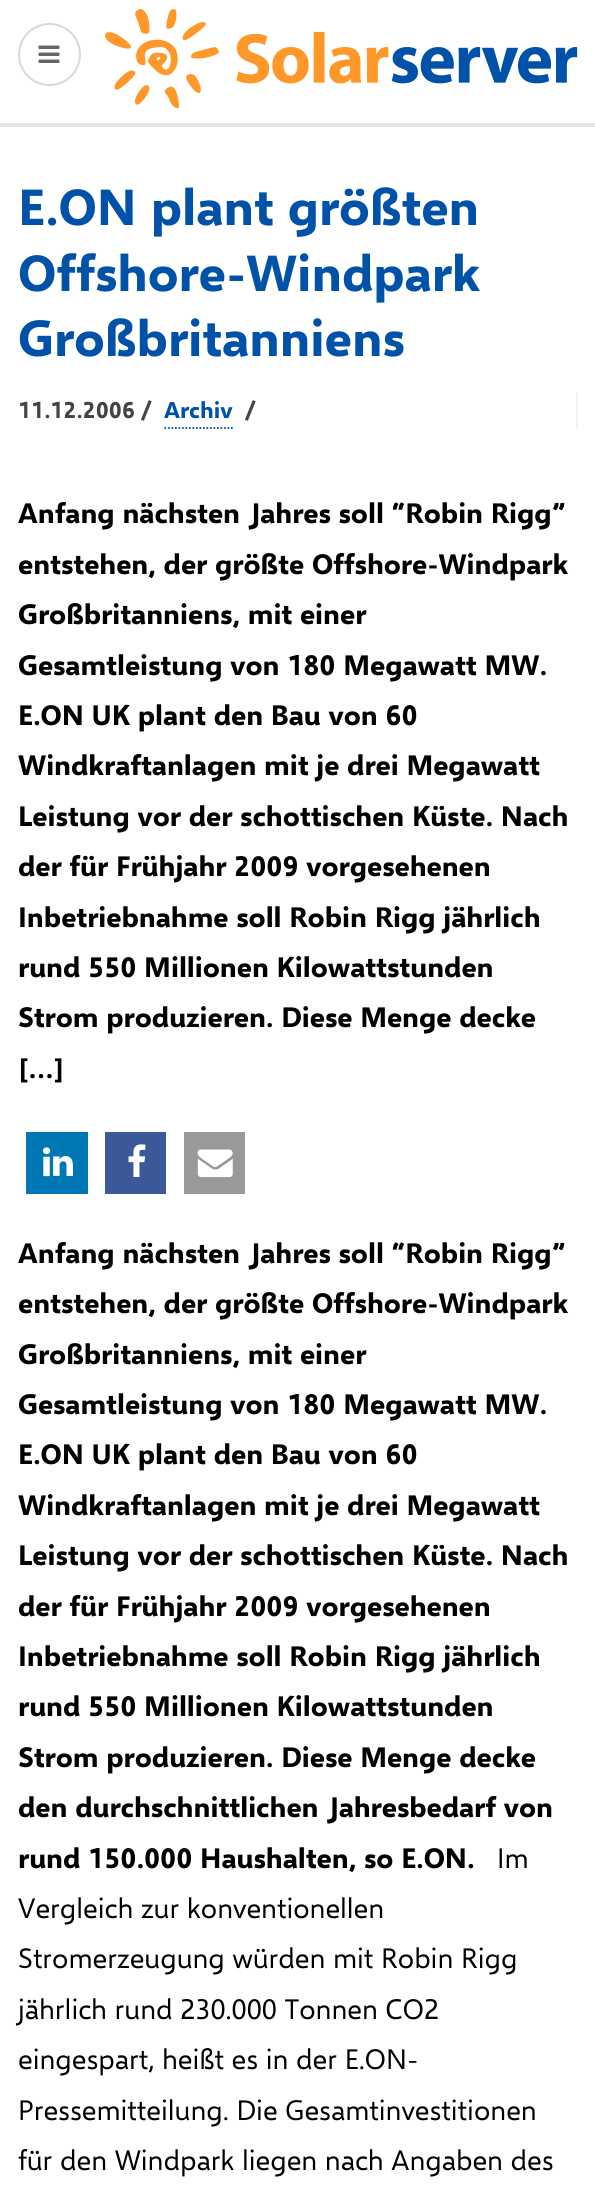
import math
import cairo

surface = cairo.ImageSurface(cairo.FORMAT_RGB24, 595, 2190)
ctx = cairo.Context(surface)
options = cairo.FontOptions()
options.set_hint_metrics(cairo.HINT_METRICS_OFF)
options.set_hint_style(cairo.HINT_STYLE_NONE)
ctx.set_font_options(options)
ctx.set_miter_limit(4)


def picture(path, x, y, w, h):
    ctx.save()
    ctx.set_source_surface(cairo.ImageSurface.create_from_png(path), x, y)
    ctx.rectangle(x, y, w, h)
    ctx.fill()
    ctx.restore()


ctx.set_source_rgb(1, 1, 1)
ctx.paint()
ctx.set_source_rgb(0.902, 0.902, 0.902)
ctx.rectangle(0, 123, 595, 4)
ctx.fill()
ctx.arc(49.5, 54.5, 30.5, 0, 2 * math.pi)
ctx.set_source_rgb(0.851, 0.851, 0.851)
ctx.stroke()
picture("img1.png", 38, 45, 22, 18)
picture("img2.png", 105, 9, 473, 100)
ctx.select_font_face("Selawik", cairo.FONT_SLANT_NORMAL, cairo.FONT_WEIGHT_BOLD)
ctx.set_font_size(50.5)
ctx.set_source_rgb(0, 0.322, 0.659)
ctx.move_to(18, 225)
ctx.show_text("E.ON plant größten")
ctx.move_to(18, 291)
ctx.show_text("Offshore-Windpark")
ctx.move_to(18, 356)
ctx.show_text("Großbritanniens")
ctx.set_source_rgb(0.949, 0.949, 0.949)
ctx.rectangle(576, 392, 2, 37)
ctx.fill()
ctx.set_font_size(22.75)
ctx.set_source_rgb(0.267, 0.267, 0.267)
ctx.move_to(18, 418)
ctx.show_text("11.12.2006")
ctx.set_font_size(24)
ctx.move_to(141, 418)
ctx.show_text("/")
ctx.set_font_size(22.75)
ctx.set_source_rgb(0, 0.322, 0.659)
ctx.move_to(164, 418)
ctx.show_text("Archiv")
ctx.new_path()
ctx.move_to(164.5, 428)
ctx.line_to(233, 428)
ctx.set_line_width(1.8)
ctx.set_dash([1.75, 1.75])
ctx.stroke()
ctx.set_font_size(24)
ctx.set_source_rgb(0.267, 0.267, 0.267)
ctx.move_to(245, 418)
ctx.show_text("/")
ctx.set_font_size(28)
ctx.set_source_rgb(0, 0, 0)
ctx.move_to(18, 523)
ctx.show_text("Anfang nächsten Jahres soll “Robin Rigg”")
ctx.move_to(18, 574)
ctx.show_text("entstehen, der größte Offshore-Windpark")
ctx.move_to(18, 624)
ctx.show_text("Großbritanniens, mit einer")
ctx.move_to(18, 675)
ctx.show_text("Gesamtleistung von 180 Megawatt MW.")
ctx.move_to(18, 725)
ctx.show_text("E.ON UK plant den Bau von 60")
ctx.move_to(18, 775)
ctx.show_text("Windkraftanlagen mit je drei Megawatt")
ctx.move_to(18, 826)
ctx.show_text("Leistung vor der schottischen Küste. Nach")
ctx.move_to(18, 876)
ctx.show_text("der für Frühjahr 2009 vorgesehenen")
ctx.move_to(18, 927)
ctx.show_text("Inbetriebnahme soll Robin Rigg jährlich")
ctx.move_to(18, 977)
ctx.show_text("rund 550 Millionen Kilowattstunden")
ctx.move_to(18, 1027)
ctx.show_text("Strom produzieren. Diese Menge decke")
ctx.move_to(18, 1078)
ctx.show_text("[…]")
ctx.set_source_rgb(0, 0.467, 0.71)
ctx.rectangle(26, 1132, 62, 62)
ctx.fill()
picture("img3.png", 43, 1147, 30, 30)
ctx.set_source_rgb(0.231, 0.349, 0.596)
ctx.rectangle(105, 1132, 61, 62)
ctx.fill()
picture("img4.png", 128, 1144, 18, 33)
ctx.set_source_rgb(0.6, 0.6, 0.6)
ctx.rectangle(184, 1132, 61, 62)
ctx.fill()
picture("img5.png", 197, 1149, 36, 29)
ctx.set_source_rgb(0, 0, 0)
ctx.move_to(18, 1263)
ctx.show_text("Anfang nächsten Jahres soll “Robin Rigg”")
ctx.move_to(18, 1313)
ctx.show_text("entstehen, der größte Offshore-Windpark")
ctx.move_to(18, 1364)
ctx.show_text("Großbritanniens, mit einer")
ctx.move_to(18, 1414)
ctx.show_text("Gesamtleistung von 180 Megawatt MW.")
ctx.move_to(18, 1464)
ctx.show_text("E.ON UK plant den Bau von 60")
ctx.move_to(18, 1515)
ctx.show_text("Windkraftanlagen mit je drei Megawatt")
ctx.move_to(18, 1565)
ctx.show_text("Leistung vor der schottischen Küste. Nach")
ctx.move_to(18, 1616)
ctx.show_text("der für Frühjahr 2009 vorgesehenen")
ctx.move_to(18, 1666)
ctx.show_text("Inbetriebnahme soll Robin Rigg jährlich")
ctx.move_to(18, 1716)
ctx.show_text("rund 550 Millionen Kilowattstunden")
ctx.move_to(18, 1767)
ctx.show_text("Strom produzieren. Diese Menge decke")
ctx.move_to(18, 1817)
ctx.show_text("den durchschnittlichen Jahresbedarf von")
ctx.move_to(18, 1868)
ctx.show_text("rund 150.000 Haushalten, so E.ON.")
ctx.select_font_face("Selawik")
ctx.move_to(497, 1868)
ctx.show_text("Im")
ctx.move_to(18, 1918)
ctx.show_text("Vergleich zur konventionellen")
ctx.move_to(18, 1968)
ctx.show_text("Stromerzeugung würden mit Robin Rigg")
ctx.move_to(18, 2019)
ctx.show_text("jährlich rund 230.000 Tonnen CO2")
ctx.move_to(18, 2069)
ctx.show_text("eingespart, heißt es in der E.ON-")
ctx.move_to(18, 2120)
ctx.show_text("Pressemitteilung. Die Gesamtinvestitionen")
ctx.move_to(18, 2170)
ctx.show_text("für den Windpark liegen nach Angaben des")
surface.write_to_png("page.png")
